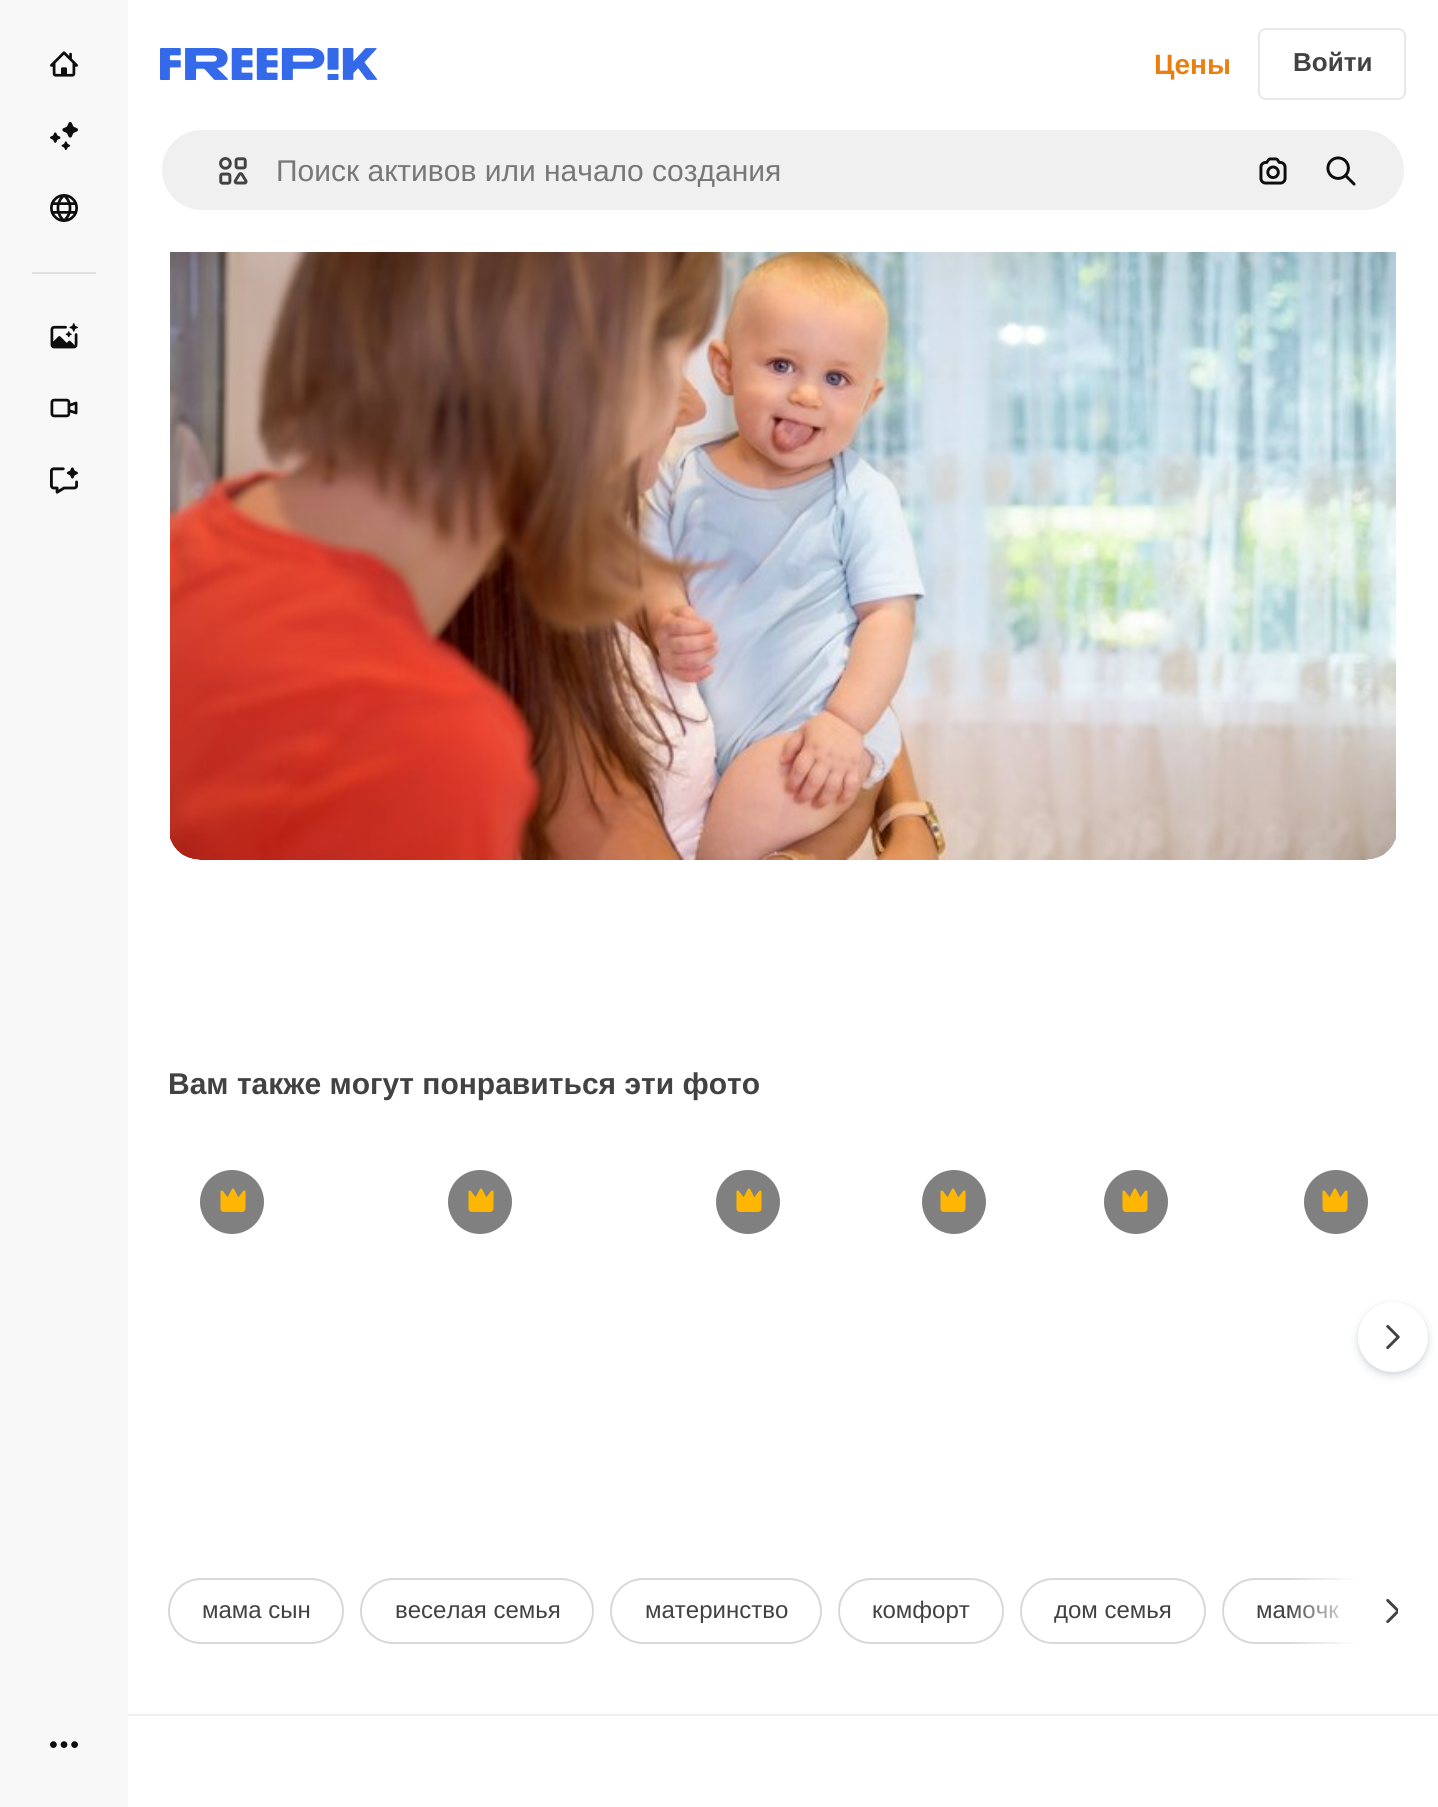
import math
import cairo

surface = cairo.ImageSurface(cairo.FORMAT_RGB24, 1438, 1807)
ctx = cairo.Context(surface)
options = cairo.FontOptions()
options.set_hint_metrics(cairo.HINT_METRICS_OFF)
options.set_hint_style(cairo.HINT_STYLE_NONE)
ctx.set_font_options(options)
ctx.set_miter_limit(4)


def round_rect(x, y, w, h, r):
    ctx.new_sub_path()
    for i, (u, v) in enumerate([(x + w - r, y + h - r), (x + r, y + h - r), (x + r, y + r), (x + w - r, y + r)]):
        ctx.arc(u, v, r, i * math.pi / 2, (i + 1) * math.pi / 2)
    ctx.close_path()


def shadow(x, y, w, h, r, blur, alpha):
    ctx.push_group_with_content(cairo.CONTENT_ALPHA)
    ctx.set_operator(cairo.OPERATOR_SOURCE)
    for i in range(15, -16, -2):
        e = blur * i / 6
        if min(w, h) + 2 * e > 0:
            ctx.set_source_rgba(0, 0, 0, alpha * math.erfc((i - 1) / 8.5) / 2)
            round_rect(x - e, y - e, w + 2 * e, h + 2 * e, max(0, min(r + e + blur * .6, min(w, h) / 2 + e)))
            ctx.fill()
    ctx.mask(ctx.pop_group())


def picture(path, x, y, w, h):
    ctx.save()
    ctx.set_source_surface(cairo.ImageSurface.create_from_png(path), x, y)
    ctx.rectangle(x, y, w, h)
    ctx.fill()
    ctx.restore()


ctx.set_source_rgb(1, 1, 1)
ctx.paint()
ctx.set_source_rgb(0.969, 0.969, 0.969)
ctx.rectangle(0, 0, 128, 1807)
ctx.fill()
picture("img1.png", 50, 51, 28, 26)
picture("img2.png", 50, 122, 28, 28)
picture("img3.png", 50, 194, 28, 28)
ctx.set_source_rgb(0.878, 0.878, 0.878)
ctx.rectangle(32, 272, 64, 2)
ctx.fill()
picture("img4.png", 50, 323, 28, 26)
picture("img5.png", 50, 398, 28, 20)
picture("img6.png", 50, 467, 28, 27)
picture("img7.png", 50, 1741, 28, 7)
picture("img8.png", 160, 48, 218, 32)
ctx.select_font_face("Liberation Sans", cairo.FONT_SLANT_NORMAL, cairo.FONT_WEIGHT_BOLD)
ctx.set_font_size(28)
ctx.set_source_rgb(0.918, 0.494, 0.067)
ctx.move_to(1154, 74)
ctx.show_text("Цены")
round_rect(1259, 29, 146, 70, 7)
ctx.set_source_rgb(0.906, 0.906, 0.906)
ctx.stroke()
ctx.set_font_size(26)
ctx.set_source_rgb(0.259, 0.259, 0.259)
ctx.move_to(1293, 71)
ctx.show_text("Войти")
ctx.set_source_rgb(0.941, 0.941, 0.941)
round_rect(161, 129, 1244, 82, 41)
ctx.fill_preserve()
ctx.set_source_rgb(1, 1, 1)
ctx.stroke()
picture("img9.png", 219, 157, 29, 28)
ctx.select_font_face("Liberation Sans")
ctx.set_font_size(30)
ctx.set_source_rgb(0.467, 0.467, 0.467)
ctx.move_to(276, 181)
ctx.show_text("Поиск активов или начало создания")
picture("img10.png", 1259, 157, 28, 28)
picture("img11.png", 1326, 156, 30, 30)
picture("img12.png", 170, 252, 1226, 608)
ctx.select_font_face("Liberation Sans", cairo.FONT_SLANT_NORMAL, cairo.FONT_WEIGHT_BOLD)
ctx.set_source_rgb(0.259, 0.259, 0.259)
ctx.move_to(168, 1094)
ctx.show_text("Вам также могут понравиться эти фото")
ctx.set_source_rgb(0.502, 0.502, 0.502)
ctx.new_path()
ctx.arc(232, 1202, 32, 0, 2 * math.pi)
ctx.fill()
picture("img13.png", 220, 1188, 26, 24)
ctx.arc(480, 1202, 32, 0, 2 * math.pi)
ctx.fill()
picture("img13.png", 468, 1188, 26, 24)
ctx.arc(748, 1202, 32, 0, 2 * math.pi)
ctx.fill()
picture("img13.png", 736, 1188, 26, 24)
ctx.arc(954, 1202, 32, 0, 2 * math.pi)
ctx.fill()
picture("img13.png", 940, 1188, 26, 24)
ctx.arc(1136, 1202, 32, 0, 2 * math.pi)
ctx.fill()
picture("img13.png", 1122, 1188, 26, 24)
ctx.arc(1336, 1202, 32, 0, 2 * math.pi)
ctx.fill()
picture("img13.png", 1322, 1188, 26, 24)
ctx.set_source_rgb(0.216, 0.286, 0.341)
shadow(1358, 1306, 70, 70, 35, 5, 0.15)
shadow(1358, 1304, 70, 70, 35, 2, 0.1)
ctx.set_source_rgb(1, 1, 1)
ctx.arc(1393, 1337, 35, 0, 2 * math.pi)
ctx.fill()
picture("img14.png", 1386, 1324, 14, 26)
round_rect(169, 1579, 174, 64, 32)
ctx.set_source_rgb(0.847, 0.847, 0.847)
ctx.stroke()
ctx.select_font_face("Liberation Sans")
ctx.set_font_size(24)
ctx.set_source_rgb(0.259, 0.259, 0.259)
ctx.move_to(202, 1618)
ctx.show_text("мама сын")
round_rect(361, 1579, 232, 64, 32)
ctx.set_source_rgb(0.847, 0.847, 0.847)
ctx.stroke()
ctx.set_source_rgb(0.259, 0.259, 0.259)
ctx.move_to(395, 1618)
ctx.show_text("веселая семья")
round_rect(611, 1579, 210, 64, 32)
ctx.set_source_rgb(0.847, 0.847, 0.847)
ctx.stroke()
ctx.set_source_rgb(0.259, 0.259, 0.259)
ctx.move_to(645, 1618)
ctx.show_text("материнство")
round_rect(839, 1579, 164, 64, 32)
ctx.set_source_rgb(0.847, 0.847, 0.847)
ctx.stroke()
ctx.set_source_rgb(0.259, 0.259, 0.259)
ctx.move_to(872, 1618)
ctx.show_text("комфорт")
round_rect(1021, 1579, 184, 64, 32)
ctx.set_source_rgb(0.847, 0.847, 0.847)
ctx.stroke()
ctx.set_source_rgb(0.259, 0.259, 0.259)
ctx.move_to(1054, 1618)
ctx.show_text("дом семья")
round_rect(1223, 1579, 162, 64, 32)
ctx.set_source_rgb(0.847, 0.847, 0.847)
ctx.stroke()
ctx.set_source_rgb(0.259, 0.259, 0.259)
ctx.move_to(1256, 1618)
ctx.show_text("мамочк")
ctx.set_source_rgb(1, 1, 1)
ctx.rectangle(1358, 1578, 28, 66)
ctx.fill()
gradient = cairo.LinearGradient(1358, 1611, 1288, 1611)
gradient.add_color_stop_rgba(0, 1, 1, 1, 1)
gradient.add_color_stop_rgba(1, 1, 1, 1, 0)
ctx.set_source(gradient)
ctx.rectangle(1290, 1578, 68, 66)
ctx.fill()
picture("img15.png", 1386, 1598, 12, 26)
ctx.set_source_rgb(0.941, 0.941, 0.941)
ctx.rectangle(128, 1714, 1310, 2)
ctx.fill()
surface.write_to_png("page.png")
